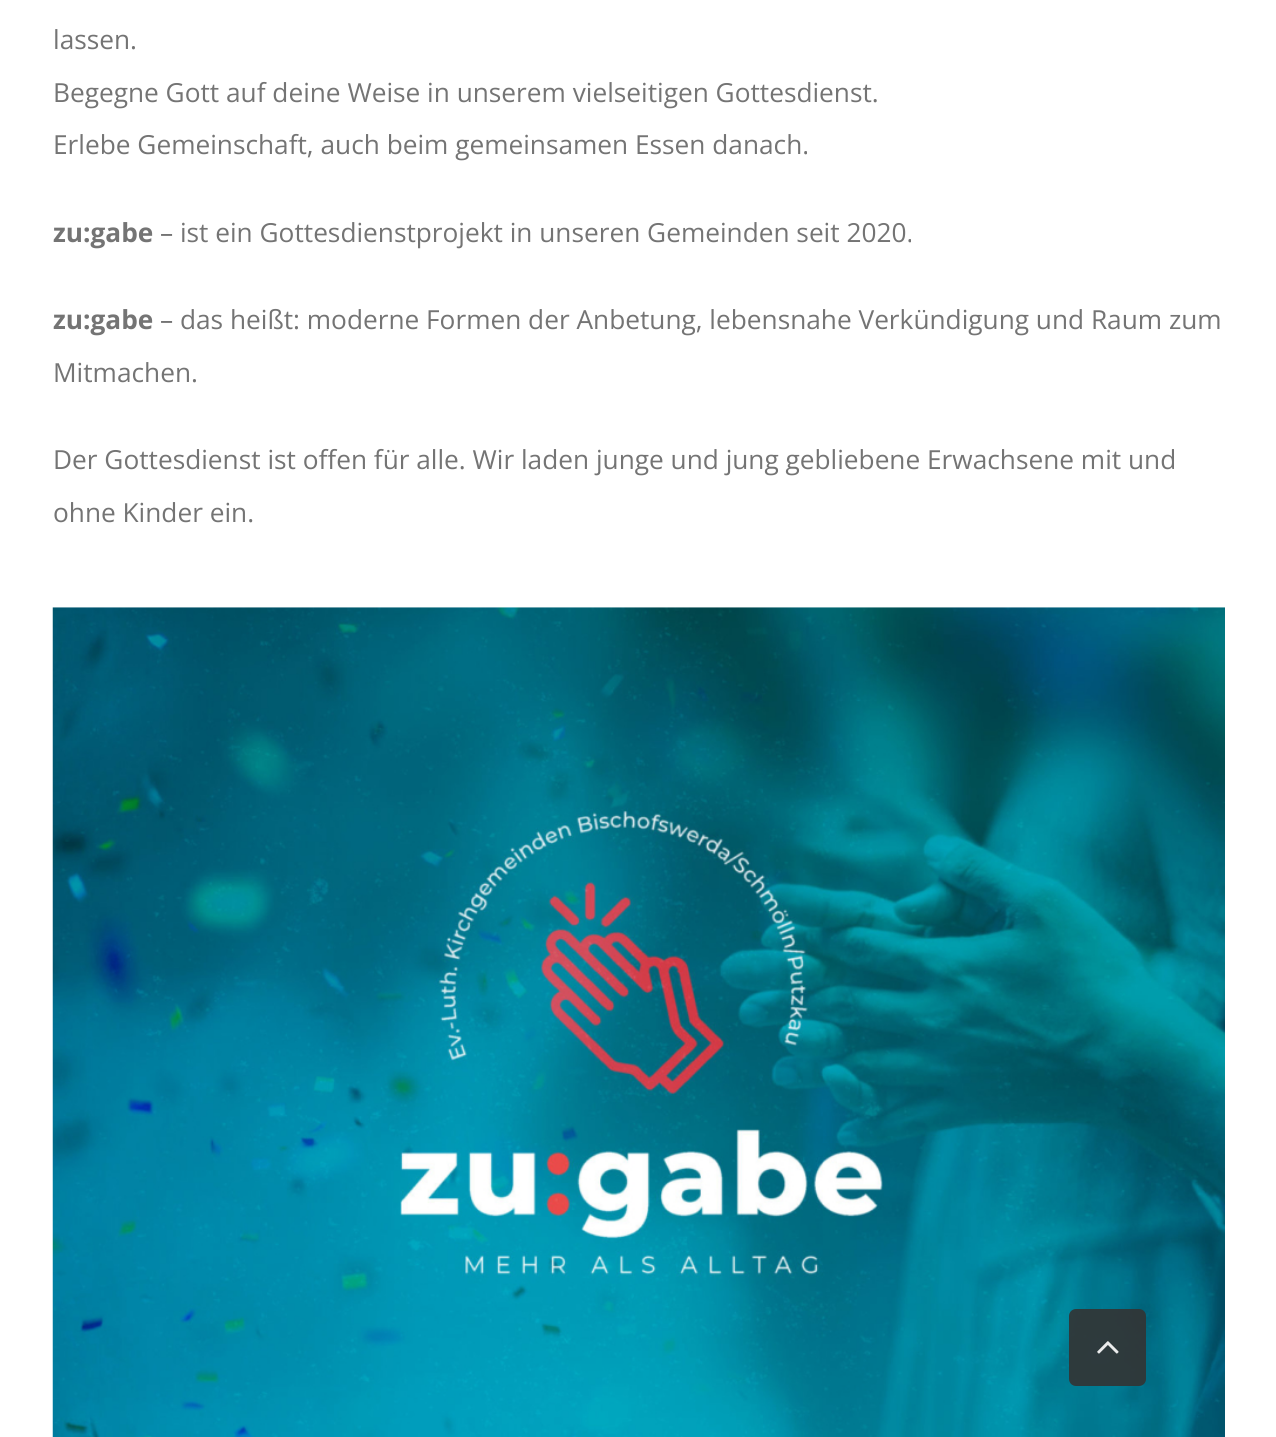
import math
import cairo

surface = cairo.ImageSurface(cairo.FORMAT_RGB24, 1276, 1437)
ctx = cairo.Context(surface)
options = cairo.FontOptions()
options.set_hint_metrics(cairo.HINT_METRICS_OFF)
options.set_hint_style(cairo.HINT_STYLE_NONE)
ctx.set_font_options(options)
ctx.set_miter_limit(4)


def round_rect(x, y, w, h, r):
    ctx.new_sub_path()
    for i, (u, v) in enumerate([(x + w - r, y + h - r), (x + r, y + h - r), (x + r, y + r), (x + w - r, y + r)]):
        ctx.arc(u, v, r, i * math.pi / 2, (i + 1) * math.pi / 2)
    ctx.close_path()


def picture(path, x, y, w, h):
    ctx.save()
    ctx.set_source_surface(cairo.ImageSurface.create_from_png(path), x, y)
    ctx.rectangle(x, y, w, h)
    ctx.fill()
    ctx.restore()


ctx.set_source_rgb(1, 1, 1)
ctx.paint()
ctx.select_font_face("Open Sans")
ctx.set_font_size(26.25)
ctx.set_source_rgb(0.455, 0.455, 0.455)
ctx.move_to(53, 49)
ctx.show_text("lassen.")
ctx.move_to(53, 102)
ctx.show_text("Begegne Gott auf deine Weise in unserem vielseitigen Gottesdienst.")
ctx.move_to(53, 154)
ctx.show_text("Erlebe Gemeinschaft, auch beim gemeinsamen Essen danach.")
ctx.select_font_face("Open Sans", cairo.FONT_SLANT_NORMAL, cairo.FONT_WEIGHT_BOLD)
ctx.move_to(53, 242)
ctx.show_text("zu:gabe")
ctx.select_font_face("Open Sans")
ctx.move_to(160, 242)
ctx.show_text("– ist ein Gottesdienstprojekt in unseren Gemeinden seit 2020.")
ctx.select_font_face("Open Sans", cairo.FONT_SLANT_NORMAL, cairo.FONT_WEIGHT_BOLD)
ctx.move_to(53, 329)
ctx.show_text("zu:gabe")
ctx.select_font_face("Open Sans")
ctx.move_to(160, 329)
ctx.show_text("– das heißt: moderne Formen der Anbetung, lebensnahe Verkündigung und Raum zum")
ctx.move_to(53, 382)
ctx.show_text("Mitmachen.")
ctx.move_to(53, 469)
ctx.show_text("Der Gottesdienst ist offen für alle. Wir laden junge und jung gebliebene Erwachsene mit und")
ctx.move_to(53, 522)
ctx.show_text("ohne Kinder ein.")
picture("img1.png", 52, 607, 1173, 830)
ctx.set_source_rgba(0.2, 0.2, 0.2, 0.9)
round_rect(1069, 1309, 77, 77, 7)
ctx.fill()
picture("img2.png", 1097, 1341, 22, 13)
surface.write_to_png("page.png")
